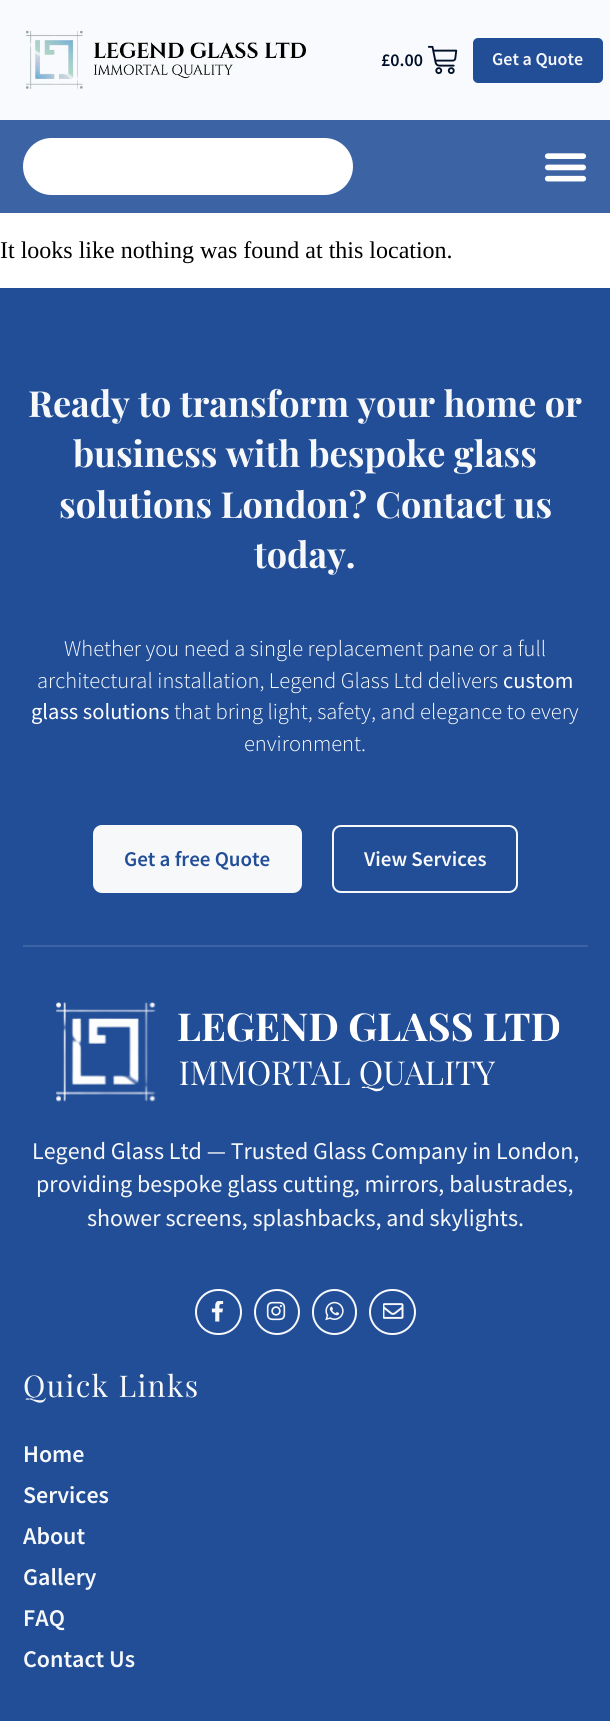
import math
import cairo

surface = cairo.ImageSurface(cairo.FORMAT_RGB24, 610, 1721)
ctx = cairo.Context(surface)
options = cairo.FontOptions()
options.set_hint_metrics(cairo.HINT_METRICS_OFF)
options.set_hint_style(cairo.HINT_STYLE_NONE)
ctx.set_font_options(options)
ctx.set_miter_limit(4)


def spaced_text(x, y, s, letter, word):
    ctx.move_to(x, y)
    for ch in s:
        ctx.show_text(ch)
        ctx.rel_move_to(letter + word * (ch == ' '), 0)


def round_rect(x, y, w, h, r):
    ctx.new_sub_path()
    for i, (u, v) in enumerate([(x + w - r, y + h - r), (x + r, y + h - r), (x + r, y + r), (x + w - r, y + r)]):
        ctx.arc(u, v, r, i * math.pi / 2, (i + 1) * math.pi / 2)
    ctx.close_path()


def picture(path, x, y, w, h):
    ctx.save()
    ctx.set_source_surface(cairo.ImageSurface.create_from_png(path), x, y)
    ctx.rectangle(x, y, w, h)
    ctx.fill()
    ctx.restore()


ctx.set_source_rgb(1, 1, 1)
ctx.paint()
ctx.set_source_rgb(0.973, 0.98, 0.992)
ctx.rectangle(0, 0, 610, 120)
ctx.fill()
picture("img1.png", 26, 30, 280, 59)
ctx.select_font_face("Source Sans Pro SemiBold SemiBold")
ctx.set_font_size(18)
ctx.set_source_rgb(0, 0.063, 0.161)
ctx.move_to(381, 66)
ctx.show_text("£0.00")
picture("img2.png", 428, 45, 30, 30)
ctx.set_source_rgb(0.133, 0.306, 0.596)
round_rect(474, 39, 128, 43, 4)
ctx.fill_preserve()
ctx.stroke()
ctx.set_source_rgb(0.961, 0.969, 0.98)
ctx.move_to(492, 65)
ctx.show_text("Get a Quote")
ctx.set_source_rgb(0.235, 0.392, 0.647)
ctx.rectangle(0, 120, 610, 93)
ctx.fill()
ctx.set_source_rgb(1, 1, 1)
round_rect(23, 138, 330, 57, 28.5)
ctx.fill()
picture("img3.png", 544, 153, 43, 29)
ctx.select_font_face("Liberation Serif")
ctx.set_font_size(24)
ctx.set_source_rgb(0, 0, 0)
ctx.move_to(0, 258)
ctx.show_text("It looks like nothing was found at this location.")
ctx.set_source_rgb(0.133, 0.306, 0.596)
ctx.rectangle(0, 288, 610, 1433)
ctx.fill()
ctx.select_font_face("Playfair Display", cairo.FONT_SLANT_NORMAL, cairo.FONT_WEIGHT_BOLD)
ctx.set_font_size(36)
ctx.set_source_rgb(0.961, 0.969, 0.98)
ctx.move_to(28, 417)
ctx.show_text("Ready to transform your home or")
ctx.move_to(73, 467)
ctx.show_text("business with bespoke glass")
ctx.move_to(59, 518)
ctx.show_text("solutions London? Contact us")
ctx.move_to(254, 568)
ctx.show_text("today.")
ctx.select_font_face("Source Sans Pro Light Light")
ctx.set_font_size(22.5)
ctx.set_source_rgb(1, 1, 1)
ctx.move_to(64, 656)
ctx.show_text("Whether you need a single replacement pane or a full")
ctx.move_to(37, 688)
ctx.show_text("architectural installation, Legend Glass Ltd delivers")
ctx.select_font_face("Source Sans Pro")
ctx.move_to(503, 688)
ctx.show_text("custom")
ctx.move_to(31, 719)
ctx.show_text("glass solutions")
ctx.select_font_face("Source Sans Pro Light Light")
ctx.move_to(174, 719)
ctx.show_text("that bring light, safety, and elegance to every")
ctx.move_to(244, 751)
ctx.show_text("environment.")
ctx.set_source_rgb(0.961, 0.969, 0.98)
round_rect(94, 826, 207, 66, 8)
ctx.fill_preserve()
ctx.stroke()
ctx.select_font_face("Source Sans Pro SemiBold SemiBold")
ctx.set_font_size(21)
ctx.set_source_rgb(0.133, 0.306, 0.596)
ctx.move_to(124, 866)
ctx.show_text("Get a free Quote")
round_rect(333, 826, 184, 66, 8)
ctx.set_source_rgb(0.961, 0.969, 0.98)
ctx.stroke()
ctx.move_to(364, 866)
ctx.show_text("View Services")
ctx.set_source_rgb(0.235, 0.392, 0.647)
ctx.rectangle(23, 945, 565, 2)
ctx.fill()
picture("img4.png", 56, 1001, 504, 101)
ctx.select_font_face("Source Sans Pro")
ctx.set_font_size(24)
ctx.set_source_rgb(0.961, 0.969, 0.98)
ctx.move_to(32, 1159)
ctx.show_text("Legend Glass Ltd — Trusted Glass Company in London,")
ctx.move_to(36, 1192)
ctx.show_text("providing bespoke glass cutting, mirrors, balustrades,")
ctx.move_to(87, 1226)
ctx.show_text("shower screens, splashbacks, and skylights.")
round_rect(196, 1290, 45, 44, 22)
ctx.stroke()
picture("img5.png", 211, 1301, 13, 21)
ctx.arc(277, 1312, 22, 0, 2 * math.pi)
ctx.stroke()
picture("img6.png", 266, 1301, 20, 20)
round_rect(313, 1290, 43, 44, 21.5)
ctx.stroke()
picture("img7.png", 325, 1301, 19, 20)
round_rect(370, 1290, 45, 44, 22)
ctx.stroke()
picture("img8.png", 383, 1303, 21, 16)
ctx.select_font_face("Playfair Display")
ctx.set_font_size(30)
spaced_text(23, 1397, "Quick Links", 1.4, 0)
ctx.select_font_face("Source Sans Pro SemiBold SemiBold")
ctx.set_font_size(24)
ctx.move_to(23, 1462)
ctx.show_text("Home")
ctx.move_to(23, 1503)
ctx.show_text("Services")
ctx.move_to(23, 1544)
ctx.show_text("About")
ctx.move_to(23, 1585)
ctx.show_text("Gallery")
ctx.move_to(23, 1626)
ctx.show_text("FAQ")
ctx.move_to(23, 1667)
ctx.show_text("Contact Us")
surface.write_to_png("page.png")
